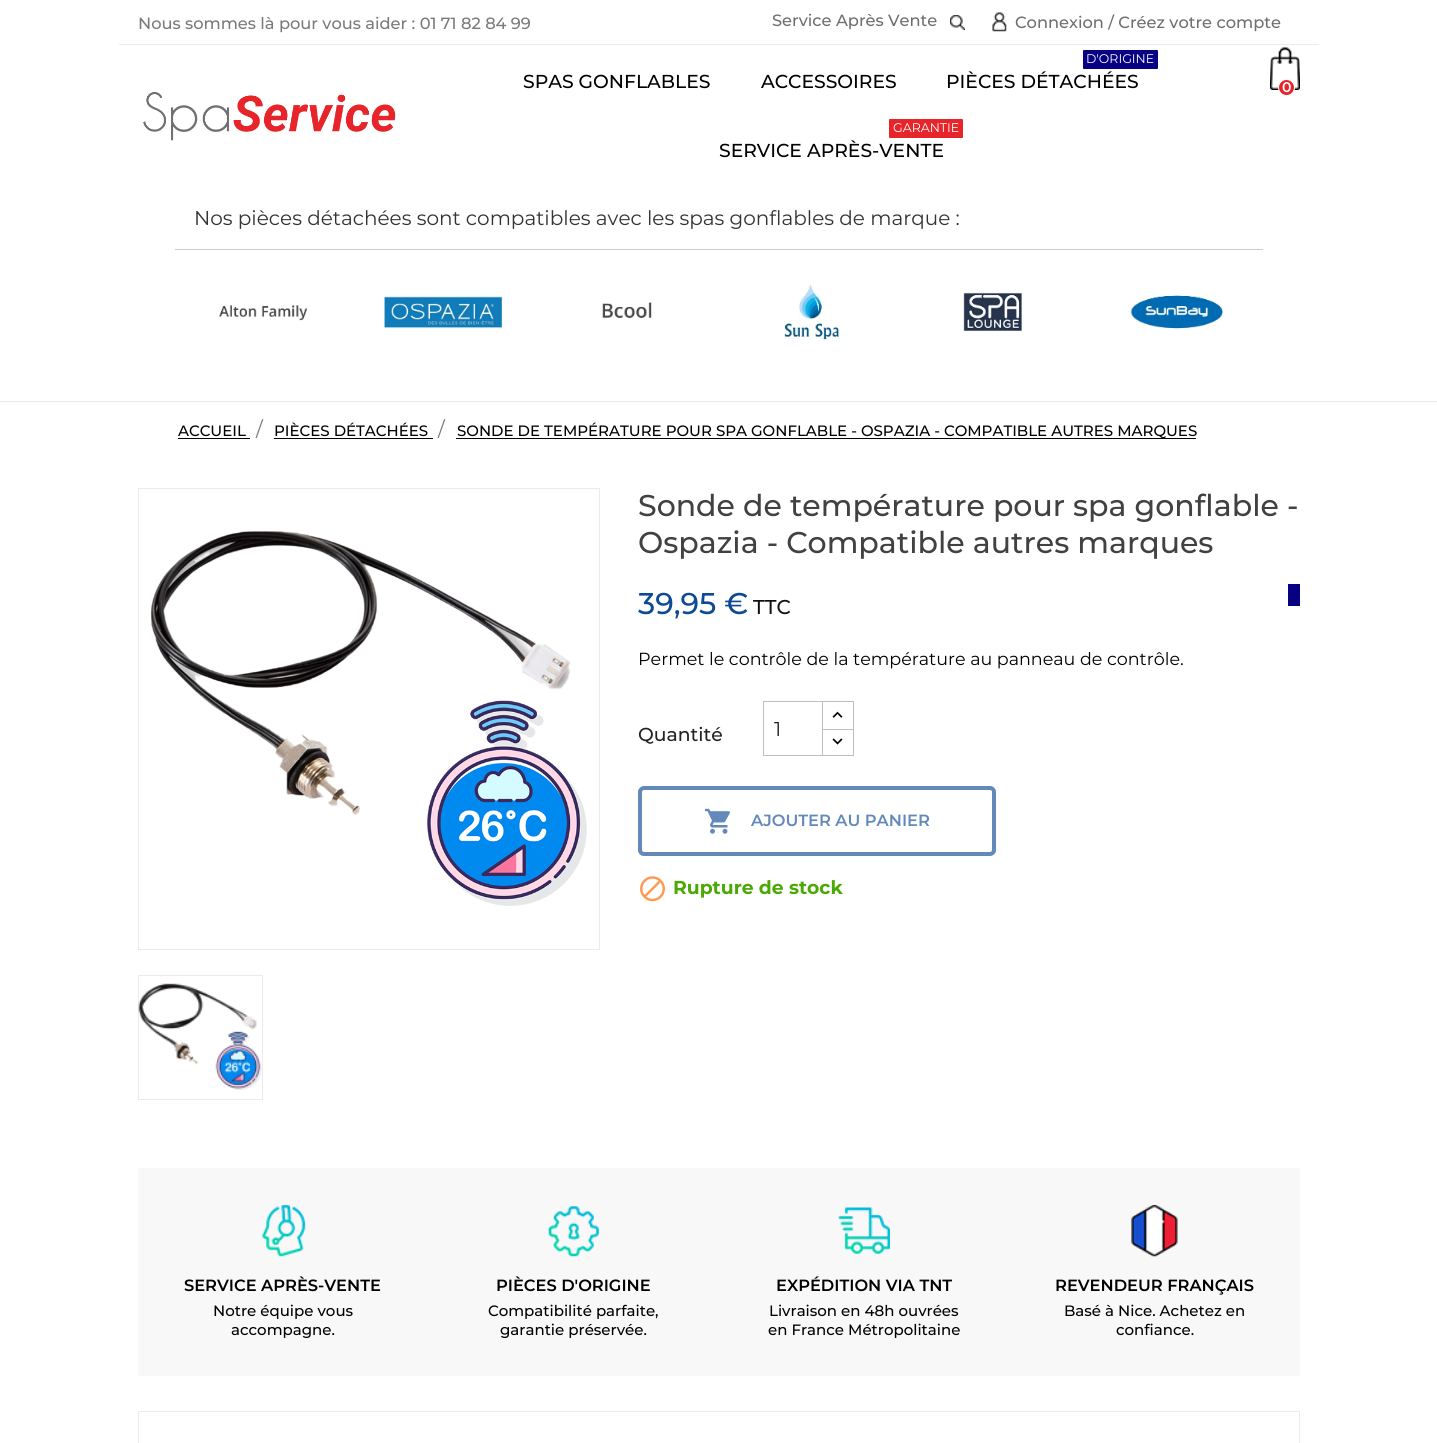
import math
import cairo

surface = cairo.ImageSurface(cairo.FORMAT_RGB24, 1437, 1443)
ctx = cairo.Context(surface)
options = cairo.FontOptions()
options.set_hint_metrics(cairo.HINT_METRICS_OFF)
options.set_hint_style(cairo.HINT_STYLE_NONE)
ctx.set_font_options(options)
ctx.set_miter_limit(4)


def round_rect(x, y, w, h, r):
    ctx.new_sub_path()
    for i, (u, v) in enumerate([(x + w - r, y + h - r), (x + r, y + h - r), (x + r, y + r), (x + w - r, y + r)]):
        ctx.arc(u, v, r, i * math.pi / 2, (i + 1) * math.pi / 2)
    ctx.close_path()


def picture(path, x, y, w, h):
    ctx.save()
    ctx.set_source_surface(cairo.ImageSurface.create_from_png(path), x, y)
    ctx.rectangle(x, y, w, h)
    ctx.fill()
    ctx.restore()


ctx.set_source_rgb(1, 1, 1)
ctx.paint()
ctx.set_source_rgb(0.918, 0.918, 0.918)
ctx.rectangle(119, 44, 1200, 1)
ctx.fill()
ctx.select_font_face("Montserrat Medium")
ctx.set_font_size(16.25)
ctx.set_source_rgb(0.478, 0.478, 0.478)
ctx.move_to(138, 29)
ctx.show_text("Nous sommes là pour vous aider : 01 71 82 84 99")
ctx.set_source_rgb(0.431, 0.431, 0.431)
ctx.move_to(772, 26)
ctx.show_text("Service Après Vente")
picture("img1.png", 950, 15, 15, 15)
picture("img2.png", 992, 12, 15, 20)
ctx.move_to(1015, 28)
ctx.show_text("Connexion / Créez votre compte")
ctx.set_source_rgb(0.918, 0.918, 0.918)
ctx.rectangle(0, 401, 1437, 1)
ctx.fill()
picture("img3.png", 143, 91, 253, 50)
ctx.set_font_size(18.75)
ctx.set_source_rgb(0, 0, 0)
ctx.move_to(523, 88)
ctx.show_text("SPAS GONFLABLES")
ctx.move_to(761, 88)
ctx.show_text("ACCESSOIRES")
ctx.set_source_rgb(0.031, 0, 0.514)
round_rect(1083, 50, 75, 19, 1)
ctx.fill()
ctx.select_font_face("Montserrat")
ctx.set_font_size(12.5)
ctx.set_source_rgb(1, 1, 1)
ctx.move_to(1086, 63)
ctx.show_text("D'ORIGINE")
ctx.select_font_face("Montserrat Medium")
ctx.set_font_size(18.75)
ctx.set_source_rgb(0, 0, 0)
ctx.move_to(946, 88)
ctx.show_text("PIÈCES DÉTACHÉES")
ctx.set_source_rgb(0.902, 0.141, 0.161)
round_rect(889, 119, 74, 19, 1)
ctx.fill()
ctx.select_font_face("Montserrat")
ctx.set_font_size(12.5)
ctx.set_source_rgb(1, 1, 1)
ctx.move_to(893, 132)
ctx.show_text("GARANTIE")
ctx.select_font_face("Montserrat Medium")
ctx.set_font_size(18.75)
ctx.set_source_rgb(0, 0, 0)
ctx.move_to(719, 157)
ctx.show_text("SERVICE APRÈS-VENTE")
picture("img4.png", 1270, 47, 30, 43)
ctx.set_source_rgb(0.902, 0.141, 0.161)
ctx.arc(1286.5, 87.5, 8, 0, 2 * math.pi)
ctx.fill_preserve()
ctx.set_source_rgb(1, 1, 1)
ctx.set_line_width(1)
ctx.stroke()
ctx.select_font_face("Montserrat SemiBold")
ctx.set_font_size(14)
ctx.move_to(1282, 92)
ctx.show_text("0")
ctx.set_source_rgb(0.8, 0.8, 0.8)
ctx.rectangle(175, 249, 1088, 1)
ctx.fill()
ctx.select_font_face("Montserrat")
ctx.set_font_size(20)
ctx.set_source_rgb(0.2, 0.2, 0.2)
ctx.move_to(194, 225)
ctx.show_text("Nos pièces détachées sont compatibles avec les spas gonflables de marque :")
picture("img5.png", 219, 305, 89, 16)
picture("img6.png", 384, 294, 119, 35)
picture("img7.png", 602, 302, 50, 16)
picture("img8.png", 783, 284, 57, 58)
picture("img9.png", 963, 292, 59, 40)
picture("img10.png", 1130, 294, 95, 36)
ctx.select_font_face("Montserrat Medium")
ctx.set_font_size(15)
ctx.set_source_rgb(0, 0, 0)
ctx.move_to(178, 436)
ctx.show_text("ACCUEIL")
ctx.rectangle(178, 438, 72, 1)
ctx.fill()
ctx.select_font_face("Montserrat")
ctx.set_font_size(20)
ctx.set_source_rgb(0.478, 0.478, 0.478)
ctx.move_to(256, 436)
ctx.show_text("/")
ctx.select_font_face("Montserrat Medium")
ctx.set_font_size(15)
ctx.set_source_rgb(0, 0, 0)
ctx.move_to(274, 436)
ctx.show_text("PIÈCES DÉTACHÉES")
ctx.rectangle(274, 438, 159, 1)
ctx.fill()
ctx.select_font_face("Montserrat")
ctx.set_font_size(20)
ctx.set_source_rgb(0.478, 0.478, 0.478)
ctx.move_to(438, 436)
ctx.show_text("/")
ctx.set_source_rgb(0, 0, 0)
ctx.rectangle(456, 438, 740, 1)
ctx.fill()
ctx.select_font_face("Montserrat Medium")
ctx.set_font_size(15)
ctx.move_to(457, 436)
ctx.show_text("SONDE DE TEMPÉRATURE POUR SPA GONFLABLE - OSPAZIA - COMPATIBLE AUTRES MARQUES")
ctx.rectangle(138.5, 488.5, 461, 461)
ctx.set_source_rgb(0.918, 0.918, 0.918)
ctx.stroke()
picture("img11.png", 151, 531, 436, 375)
ctx.rectangle(138.5, 975.5, 124, 124)
ctx.stroke()
picture("img12.png", 138, 983, 124, 107)
ctx.set_font_size(30)
ctx.set_source_rgb(0.255, 0.255, 0.255)
ctx.move_to(638, 516)
ctx.show_text("Sonde de température pour spa gonflable -")
ctx.move_to(638, 553)
ctx.show_text("Ospazia - Compatible autres marques")
ctx.set_source_rgb(0.055, 0.29, 0.576)
ctx.move_to(638, 614)
ctx.show_text("39,95 €")
ctx.set_font_size(20)
ctx.set_source_rgb(0.067, 0.067, 0.067)
ctx.move_to(753, 614)
ctx.show_text("TTC")
ctx.set_source_rgb(0.031, 0, 0.514)
ctx.rectangle(1288, 584, 12, 22)
ctx.fill()
ctx.select_font_face("Montserrat")
ctx.set_font_size(17.5)
ctx.set_source_rgb(0, 0, 0)
ctx.move_to(638, 665)
ctx.show_text("Permet le contrôle de la température au panneau de contrôle.")
ctx.select_font_face("Montserrat Medium")
ctx.set_font_size(18.75)
ctx.set_source_rgb(0.137, 0.137, 0.137)
ctx.move_to(638, 741)
ctx.show_text("Quantité")
ctx.rectangle(821.5, 701.5, 32, 54)
ctx.set_source_rgb(0.749, 0.749, 0.749)
ctx.stroke()
ctx.set_source_rgb(1, 1, 1)
ctx.rectangle(821, 702, 1, 53)
ctx.fill()
ctx.rectangle(763.5, 701.5, 59, 54)
ctx.set_source_rgb(0.749, 0.749, 0.749)
ctx.stroke()
ctx.select_font_face("Montserrat")
ctx.set_font_size(20)
ctx.set_source_rgb(0.137, 0.137, 0.137)
ctx.move_to(774, 736)
ctx.show_text("1")
picture("img13.png", 832, 711, 11, 7)
ctx.set_source_rgb(0.749, 0.749, 0.749)
ctx.rectangle(823, 729, 30, 1)
ctx.fill()
picture("img14.png", 832, 738, 11, 7)
round_rect(640, 788, 354, 66, 4)
ctx.set_source_rgb(0.384, 0.537, 0.725)
ctx.set_line_width(4)
ctx.stroke()
picture("img15.png", 705, 808, 25, 26)
ctx.select_font_face("Montserrat SemiBold")
ctx.set_font_size(16.25)
ctx.move_to(751, 826)
ctx.show_text("AJOUTER AU PANIER")
picture("img16.png", 640, 876, 25, 26)
ctx.select_font_face("Montserrat", cairo.FONT_SLANT_NORMAL, cairo.FONT_WEIGHT_BOLD)
ctx.set_font_size(18.75)
ctx.set_source_rgb(0.29, 0.663, 0.016)
ctx.move_to(673, 894)
ctx.show_text("Rupture de stock")
ctx.set_source_rgb(0.969, 0.969, 0.969)
ctx.rectangle(138, 1168, 1162, 208)
ctx.fill()
picture("img17.png", 262, 1205, 44, 52)
ctx.select_font_face("Montserrat SemiBold")
ctx.set_font_size(16.25)
ctx.set_source_rgb(0, 0, 0)
ctx.move_to(184, 1291)
ctx.show_text("SERVICE APRÈS-VENTE")
ctx.select_font_face("Montserrat Medium")
ctx.set_font_size(15)
ctx.move_to(213, 1316)
ctx.show_text("Notre équipe vous")
ctx.move_to(231, 1335)
ctx.show_text("accompagne.")
picture("img18.png", 548, 1206, 51, 51)
ctx.select_font_face("Montserrat SemiBold")
ctx.set_font_size(16.25)
ctx.move_to(496, 1291)
ctx.show_text("PIÈCES D'ORIGINE")
ctx.select_font_face("Montserrat Medium")
ctx.set_font_size(15)
ctx.move_to(488, 1316)
ctx.show_text("Compatibilité parfaite,")
ctx.move_to(500, 1335)
ctx.show_text("garantie préservée.")
picture("img19.png", 838, 1207, 52, 47)
ctx.select_font_face("Montserrat SemiBold")
ctx.set_font_size(16.25)
ctx.move_to(776, 1291)
ctx.show_text("EXPÉDITION VIA TNT")
ctx.select_font_face("Montserrat Medium")
ctx.set_font_size(15)
ctx.move_to(769, 1316)
ctx.show_text("Livraison en 48h ouvrées")
ctx.move_to(768, 1335)
ctx.show_text("en France Métropolitaine")
picture("img20.png", 1131, 1205, 47, 52)
ctx.select_font_face("Montserrat SemiBold")
ctx.set_font_size(16.25)
ctx.move_to(1055, 1291)
ctx.show_text("REVENDEUR FRANÇAIS")
ctx.select_font_face("Montserrat Medium")
ctx.set_font_size(15)
ctx.move_to(1064, 1316)
ctx.show_text("Basé à Nice. Achetez en")
ctx.move_to(1116, 1335)
ctx.show_text("confiance.")
ctx.rectangle(138.5, 1411.5, 1161, 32)
ctx.set_source_rgb(0.918, 0.918, 0.918)
ctx.set_line_width(1)
ctx.stroke()
surface.write_to_png("page.png")
